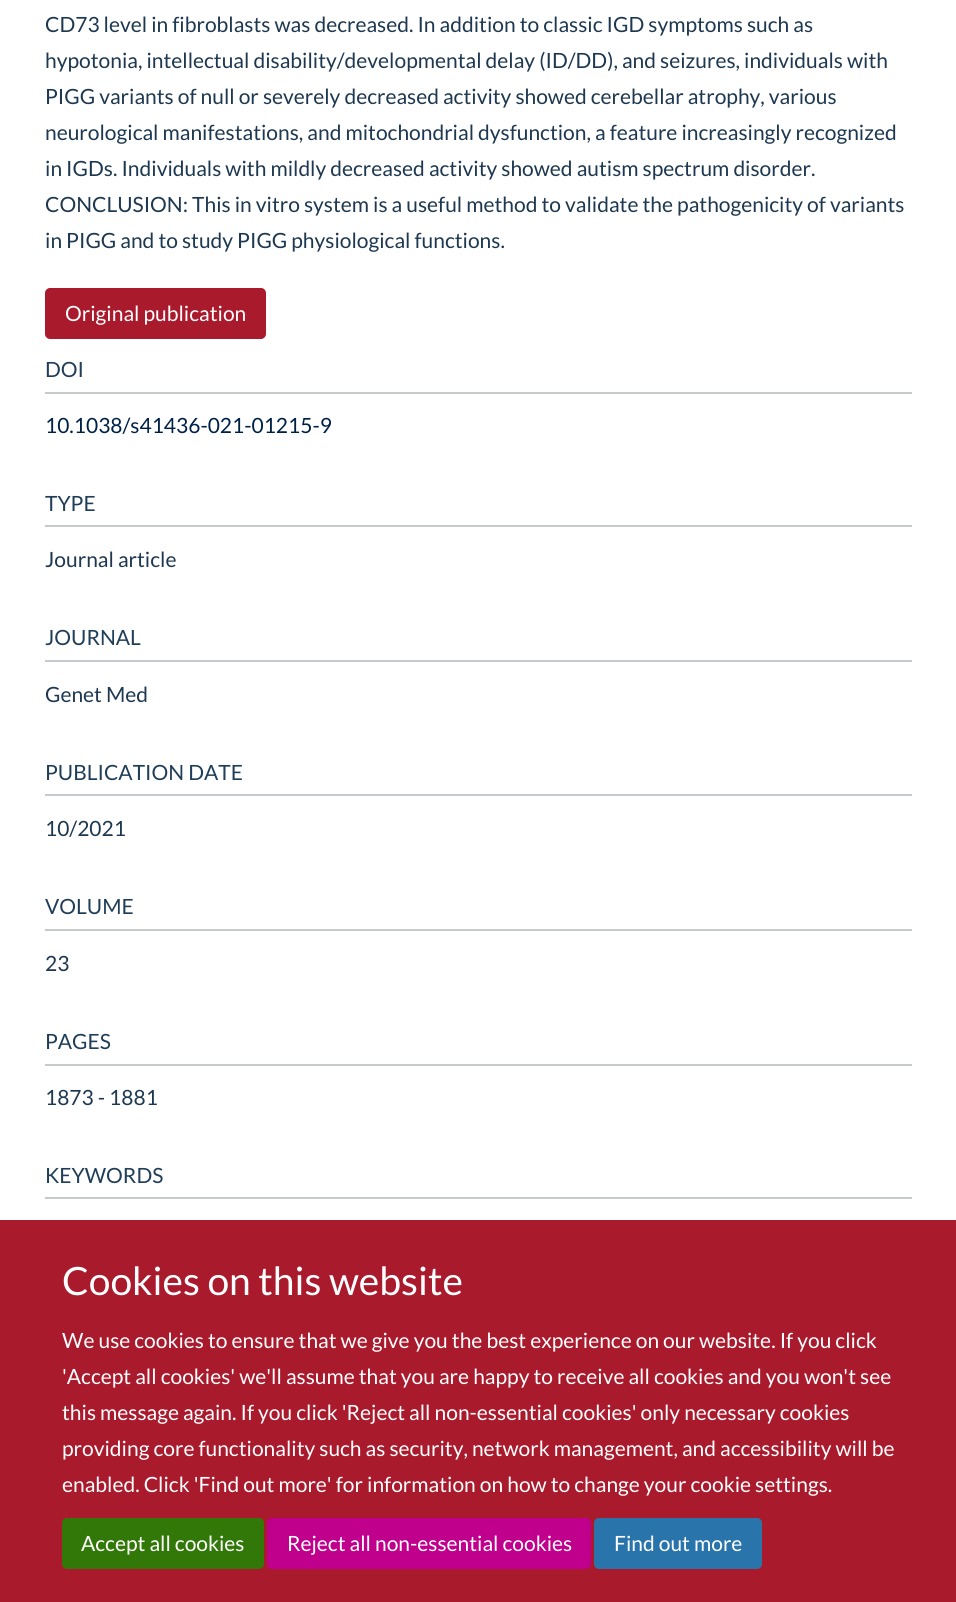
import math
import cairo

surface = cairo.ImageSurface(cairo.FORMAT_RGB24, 956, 1602)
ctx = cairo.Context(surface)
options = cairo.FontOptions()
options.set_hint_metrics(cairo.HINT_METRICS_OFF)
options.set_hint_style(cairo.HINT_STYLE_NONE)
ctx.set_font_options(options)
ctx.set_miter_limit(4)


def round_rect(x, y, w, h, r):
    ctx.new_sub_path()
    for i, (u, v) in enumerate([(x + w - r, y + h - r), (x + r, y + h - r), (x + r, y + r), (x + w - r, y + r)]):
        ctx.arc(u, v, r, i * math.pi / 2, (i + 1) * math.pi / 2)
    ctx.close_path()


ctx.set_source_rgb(1, 1, 1)
ctx.paint()
ctx.select_font_face("Lato")
ctx.set_font_size(21)
ctx.set_source_rgb(0.114, 0.22, 0.314)
ctx.move_to(45, 32)
ctx.show_text("CD73 level in fibroblasts was decreased. In addition to classic IGD symptoms such as")
ctx.move_to(45, 68)
ctx.show_text("hypotonia, intellectual disability/developmental delay (ID/DD), and seizures, individuals with")
ctx.move_to(45, 104)
ctx.show_text("PIGG variants of null or severely decreased activity showed cerebellar atrophy, various")
ctx.move_to(45, 140)
ctx.show_text("neurological manifestations, and mitochondrial dysfunction, a feature increasingly recognized")
ctx.move_to(45, 176)
ctx.show_text("in IGDs. Individuals with mildly decreased activity showed autism spectrum disorder.")
ctx.move_to(45, 212)
ctx.show_text("CONCLUSION: This in vitro system is a useful method to validate the pathogenicity of variants")
ctx.move_to(45, 248)
ctx.show_text("in PIGG and to study PIGG physiological functions.")
ctx.set_source_rgb(0.667, 0.102, 0.176)
round_rect(46, 289, 219, 49, 4)
ctx.fill_preserve()
ctx.stroke()
ctx.set_source_rgb(1, 1, 1)
ctx.move_to(65, 321)
ctx.show_text("Original publication")
ctx.set_source_rgb(0.776, 0.792, 0.812)
ctx.rectangle(45, 392, 867, 2)
ctx.fill()
ctx.set_source_rgb(0.125, 0.243, 0.345)
ctx.move_to(45, 377)
ctx.show_text("DOI")
ctx.set_source_rgb(0, 0.129, 0.278)
ctx.move_to(45, 433)
ctx.show_text("10.1038/s41436-021-01215-9")
ctx.set_source_rgb(0.776, 0.792, 0.812)
ctx.rectangle(45, 525, 867, 2)
ctx.fill()
ctx.set_source_rgb(0.125, 0.243, 0.345)
ctx.move_to(45, 511)
ctx.show_text("TYPE")
ctx.set_source_rgb(0.114, 0.22, 0.314)
ctx.move_to(45, 567)
ctx.show_text("Journal article")
ctx.set_source_rgb(0.776, 0.792, 0.812)
ctx.rectangle(45, 660, 867, 2)
ctx.fill()
ctx.set_source_rgb(0.125, 0.243, 0.345)
ctx.move_to(45, 645)
ctx.show_text("JOURNAL")
ctx.set_source_rgb(0.114, 0.22, 0.314)
ctx.move_to(45, 702)
ctx.show_text("Genet Med")
ctx.set_source_rgb(0.776, 0.792, 0.812)
ctx.rectangle(45, 794, 867, 2)
ctx.fill()
ctx.set_source_rgb(0.125, 0.243, 0.345)
ctx.move_to(45, 780)
ctx.show_text("PUBLICATION DATE")
ctx.set_source_rgb(0.114, 0.22, 0.314)
ctx.move_to(45, 836)
ctx.show_text("10/2021")
ctx.set_source_rgb(0.776, 0.792, 0.812)
ctx.rectangle(45, 929, 867, 2)
ctx.fill()
ctx.set_source_rgb(0.125, 0.243, 0.345)
ctx.move_to(45, 914)
ctx.show_text("VOLUME")
ctx.set_source_rgb(0.114, 0.22, 0.314)
ctx.move_to(45, 971)
ctx.show_text("23")
ctx.set_source_rgb(0.776, 0.792, 0.812)
ctx.rectangle(45, 1064, 867, 2)
ctx.fill()
ctx.set_source_rgb(0.125, 0.243, 0.345)
ctx.move_to(45, 1049)
ctx.show_text("PAGES")
ctx.set_source_rgb(0.114, 0.22, 0.314)
ctx.move_to(45, 1105)
ctx.show_text("1873 - 1881")
ctx.set_source_rgb(0.776, 0.792, 0.812)
ctx.rectangle(45, 1197, 867, 2)
ctx.fill()
ctx.set_source_rgb(0.125, 0.243, 0.345)
ctx.move_to(45, 1183)
ctx.show_text("KEYWORDS")
ctx.set_source_rgb(0.667, 0.102, 0.176)
ctx.rectangle(0, 1220, 956, 382)
ctx.fill()
ctx.set_font_size(39)
ctx.set_source_rgb(1, 1, 1)
ctx.move_to(62, 1295)
ctx.show_text("Cookies on this website")
ctx.set_font_size(21)
ctx.move_to(62, 1348)
ctx.show_text("We use cookies to ensure that we give you the best experience on our website. If you click")
ctx.move_to(62, 1384)
ctx.show_text("'Accept all cookies' we'll assume that you are happy to receive all cookies and you won't see")
ctx.move_to(62, 1420)
ctx.show_text("this message again. If you click 'Reject all non-essential cookies' only necessary cookies")
ctx.move_to(62, 1456)
ctx.show_text("providing core functionality such as security, network management, and accessibility will be")
ctx.move_to(62, 1492)
ctx.show_text("enabled. Click 'Find out more' for information on how to change your cookie settings.")
ctx.set_source_rgb(0.192, 0.471, 0.039)
round_rect(63, 1519, 200, 49, 4)
ctx.fill_preserve()
ctx.stroke()
ctx.set_source_rgb(1, 1, 1)
ctx.move_to(81, 1551)
ctx.show_text("Accept all cookies")
ctx.set_source_rgb(0.753, 0, 0.553)
round_rect(268, 1519, 322, 49, 4)
ctx.fill_preserve()
ctx.stroke()
ctx.set_source_rgb(1, 1, 1)
ctx.move_to(287, 1551)
ctx.show_text("Reject all non-essential cookies")
ctx.set_source_rgb(0.165, 0.455, 0.675)
round_rect(595, 1519, 166, 49, 4)
ctx.fill_preserve()
ctx.stroke()
ctx.set_source_rgb(1, 1, 1)
ctx.move_to(614, 1551)
ctx.show_text("Find out more")
surface.write_to_png("page.png")
